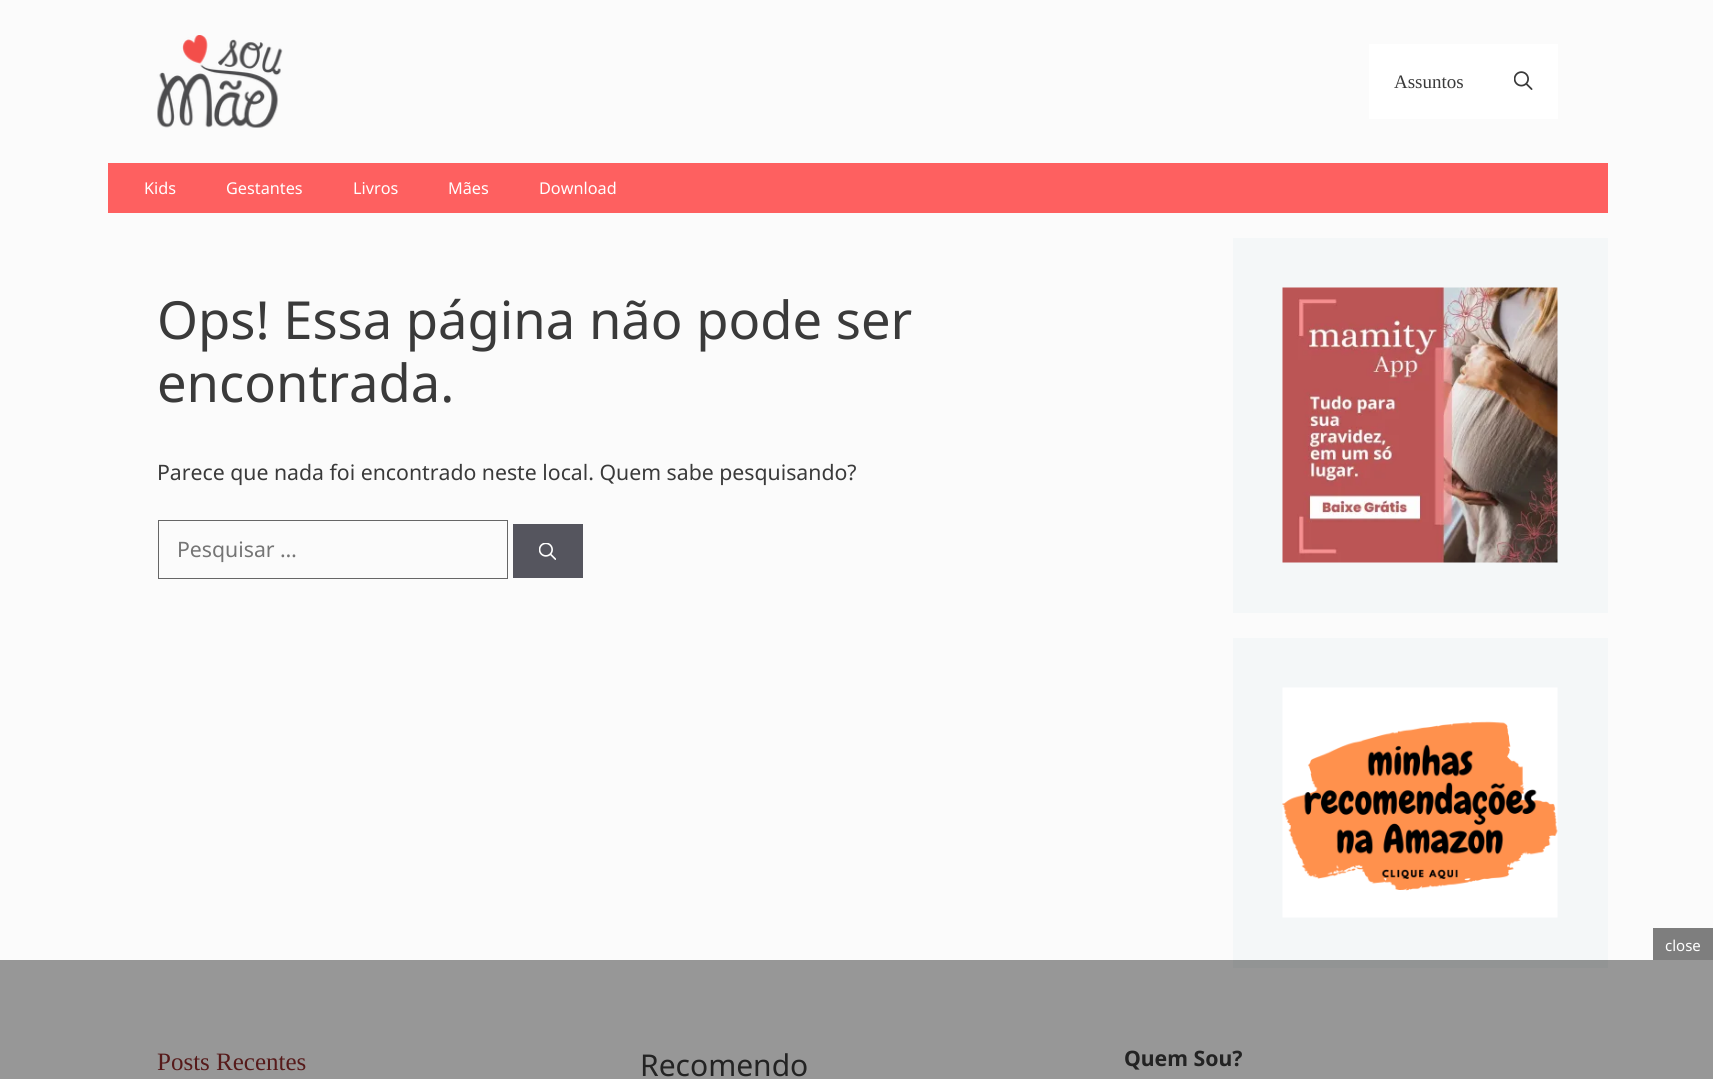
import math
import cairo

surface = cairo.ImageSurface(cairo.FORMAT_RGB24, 1713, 1079)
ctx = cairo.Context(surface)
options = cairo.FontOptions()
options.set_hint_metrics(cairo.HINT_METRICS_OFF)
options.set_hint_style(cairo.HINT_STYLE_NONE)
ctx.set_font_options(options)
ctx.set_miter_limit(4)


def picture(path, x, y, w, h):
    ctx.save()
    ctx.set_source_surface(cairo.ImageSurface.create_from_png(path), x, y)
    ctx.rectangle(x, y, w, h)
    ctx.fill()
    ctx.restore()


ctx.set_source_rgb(0.984, 0.984, 0.984)
ctx.paint()
ctx.set_source_rgb(0.592, 0.592, 0.592)
ctx.rectangle(0, 960, 1713, 119)
ctx.fill()
picture("img1.png", 157, 35, 126, 93)
ctx.set_source_rgb(1, 1, 1)
ctx.rectangle(1369, 44, 189, 75)
ctx.fill()
ctx.select_font_face("Liberation Serif")
ctx.set_font_size(19)
ctx.set_source_rgb(0.227, 0.227, 0.227)
ctx.move_to(1394, 88)
ctx.show_text("Assuntos")
picture("img2.png", 1514, 71, 19, 19)
ctx.set_source_rgb(0.996, 0.376, 0.376)
ctx.rectangle(108, 163, 1500, 50)
ctx.fill()
ctx.select_font_face("Noto Sans")
ctx.set_font_size(16.25)
ctx.set_source_rgb(1, 1, 1)
ctx.move_to(144, 194)
ctx.show_text("Kids")
ctx.move_to(226, 194)
ctx.show_text("Gestantes")
ctx.move_to(353, 194)
ctx.show_text("Livros")
ctx.move_to(448, 194)
ctx.show_text("Mães")
ctx.move_to(539, 194)
ctx.show_text("Download")
ctx.set_font_size(52.5)
ctx.set_source_rgb(0.227, 0.227, 0.227)
ctx.move_to(157, 339)
ctx.show_text("Ops! Essa página não pode ser")
ctx.move_to(157, 402)
ctx.show_text("encontrada.")
ctx.set_font_size(21.25)
ctx.move_to(157, 480)
ctx.show_text("Parece que nada foi encontrado neste local. Quem sabe pesquisando?")
ctx.rectangle(158.5, 520.5, 349, 58)
ctx.set_source_rgb(0.4, 0.4, 0.4)
ctx.set_line_width(1)
ctx.stroke()
ctx.set_source_rgb(0.459, 0.459, 0.459)
ctx.move_to(177, 557)
ctx.show_text("Pesquisar …")
ctx.set_source_rgb(0.333, 0.333, 0.369)
ctx.rectangle(513, 524, 70, 54)
ctx.fill()
picture("img3.png", 539, 543, 17, 17)
ctx.set_source_rgb(0.957, 0.965, 0.969)
ctx.rectangle(1233, 238, 375, 375)
ctx.fill()
picture("img4.png", 1282, 287, 276, 276)
ctx.rectangle(1233, 638, 375, 322)
ctx.fill()
ctx.set_source_rgb(0.573, 0.58, 0.58)
ctx.rectangle(1233, 960, 375, 8)
ctx.fill()
picture("img5.png", 1282, 687, 276, 231)
ctx.set_source_rgb(0.494, 0.494, 0.494)
ctx.rectangle(1653, 928, 60, 32)
ctx.fill()
ctx.set_font_size(15)
ctx.set_source_rgb(1, 1, 1)
ctx.move_to(1665, 951)
ctx.show_text("close")
ctx.select_font_face("Liberation Serif")
ctx.set_font_size(25)
ctx.set_source_rgb(0.337, 0.102, 0.102)
ctx.move_to(157, 1070)
ctx.show_text("Posts Recentes")
ctx.select_font_face("Noto Sans")
ctx.set_font_size(30)
ctx.set_source_rgb(0.137, 0.137, 0.137)
ctx.move_to(640, 1076)
ctx.show_text("Recomendo")
ctx.select_font_face("Noto Sans", cairo.FONT_SLANT_NORMAL, cairo.FONT_WEIGHT_BOLD)
ctx.set_font_size(21.25)
ctx.move_to(1124, 1066)
ctx.show_text("Quem Sou?")
surface.write_to_png("page.png")
